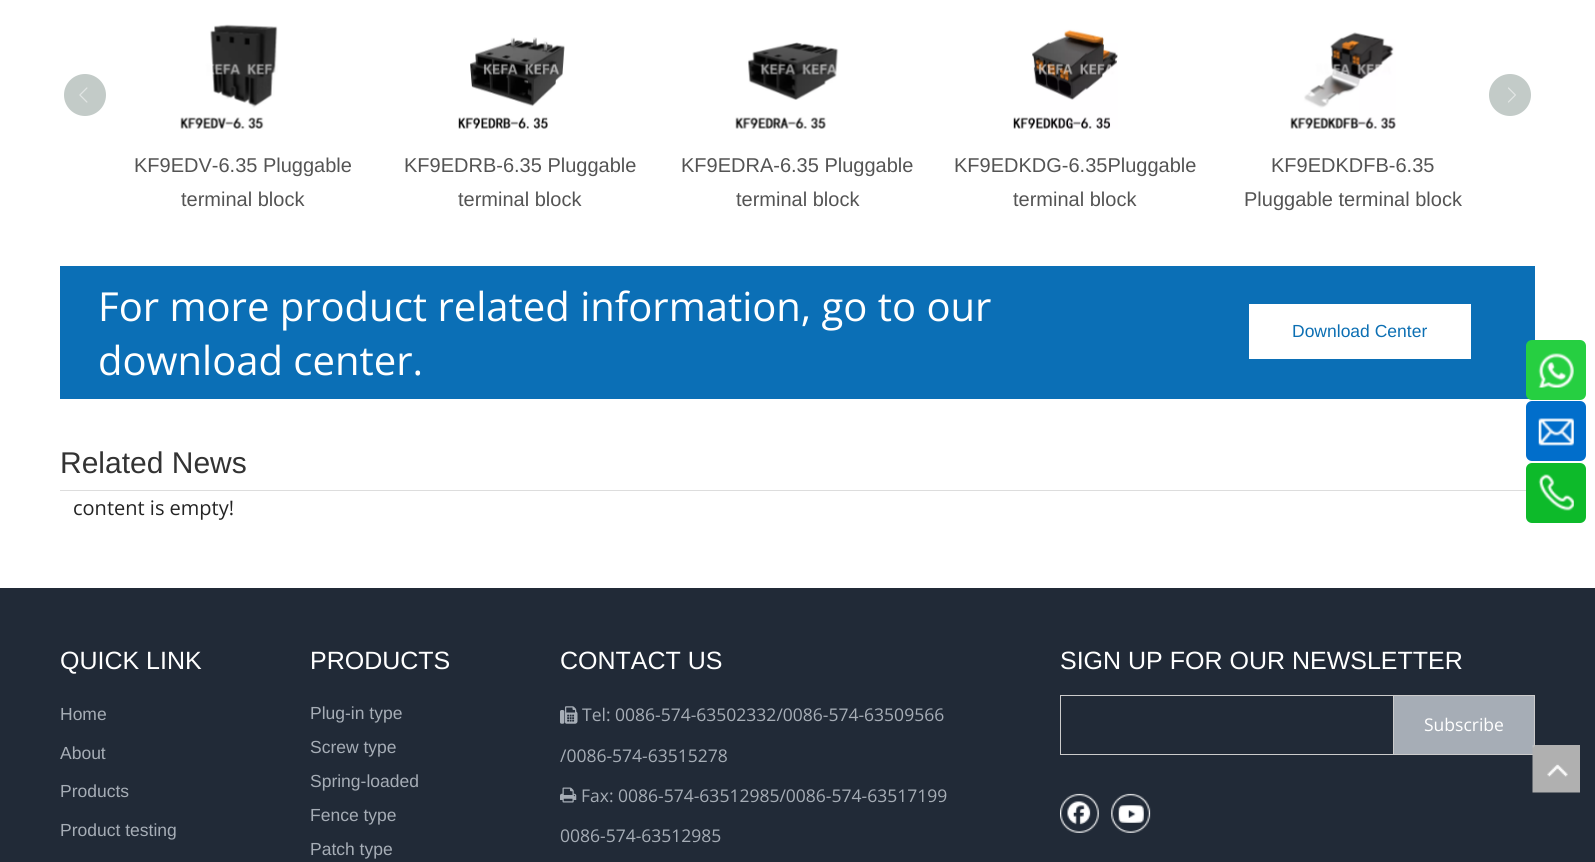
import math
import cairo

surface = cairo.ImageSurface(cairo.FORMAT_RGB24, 1595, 862)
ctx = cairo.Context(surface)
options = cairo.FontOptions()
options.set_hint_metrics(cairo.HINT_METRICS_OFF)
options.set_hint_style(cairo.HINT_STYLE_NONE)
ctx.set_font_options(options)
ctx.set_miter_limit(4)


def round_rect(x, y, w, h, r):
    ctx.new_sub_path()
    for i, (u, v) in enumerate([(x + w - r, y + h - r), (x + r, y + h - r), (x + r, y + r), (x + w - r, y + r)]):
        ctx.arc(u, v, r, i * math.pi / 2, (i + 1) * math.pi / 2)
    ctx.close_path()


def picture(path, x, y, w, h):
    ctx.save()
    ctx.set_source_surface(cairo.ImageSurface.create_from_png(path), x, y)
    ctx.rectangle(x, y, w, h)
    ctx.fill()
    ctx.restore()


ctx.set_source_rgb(1, 1, 1)
ctx.paint()
ctx.set_source_rgb(0.765, 0.796, 0.784)
ctx.arc(85, 95, 21, 0, 2 * math.pi)
ctx.fill()
picture("img1.png", 79, 87, 9, 16)
ctx.arc(1510, 95, 21, 0, 2 * math.pi)
ctx.fill()
picture("img2.png", 1508, 87, 8, 16)
picture("img3.png", 180, 24, 98, 105)
ctx.select_font_face("Liberation Sans")
ctx.set_font_size(20)
ctx.set_source_rgb(0.329, 0.329, 0.329)
ctx.move_to(134, 172)
ctx.show_text("KF9EDV-6.35 Pluggable")
ctx.move_to(181, 206)
ctx.show_text("terminal block")
picture("img4.png", 458, 37, 107, 92)
ctx.move_to(404, 172)
ctx.show_text("KF9EDRB-6.35 Pluggable")
ctx.move_to(458, 206)
ctx.show_text("terminal block")
picture("img5.png", 735, 42, 104, 87)
ctx.move_to(681, 172)
ctx.show_text("KF9EDRA-6.35 Pluggable")
ctx.move_to(736, 206)
ctx.show_text("terminal block")
picture("img6.png", 1013, 29, 105, 100)
ctx.move_to(954, 172)
ctx.show_text("KF9EDKDG-6.35Pluggable")
ctx.move_to(1013, 206)
ctx.show_text("terminal block")
picture("img7.png", 1290, 32, 106, 97)
ctx.move_to(1271, 172)
ctx.show_text("KF9EDKDFB-6.35")
ctx.move_to(1244, 206)
ctx.show_text("Pluggable terminal block")
ctx.set_source_rgb(0.043, 0.435, 0.714)
ctx.rectangle(60, 266, 1475, 133)
ctx.fill()
ctx.select_font_face("Open Sans")
ctx.set_font_size(40)
ctx.set_source_rgb(1, 1, 1)
ctx.move_to(98, 321)
ctx.show_text("For more product related information, go to our")
ctx.move_to(98, 375)
ctx.show_text("download center.")
ctx.rectangle(1249, 304, 222, 55)
ctx.fill()
ctx.select_font_face("Liberation Sans")
ctx.set_font_size(17.5)
ctx.set_source_rgb(0.047, 0.435, 0.702)
ctx.move_to(1292, 337)
ctx.show_text("Download Center")
ctx.set_source_rgb(0.867, 0.867, 0.867)
ctx.rectangle(60, 490, 1466, 1)
ctx.fill()
ctx.set_font_size(30)
ctx.set_source_rgb(0.2, 0.2, 0.2)
ctx.move_to(60, 473)
ctx.show_text("Related News")
ctx.select_font_face("Open Sans")
ctx.set_font_size(20)
ctx.set_source_rgb(0.141, 0.141, 0.141)
ctx.move_to(73, 515)
ctx.show_text("content is empty!")
ctx.set_source_rgb(0.129, 0.165, 0.216)
ctx.rectangle(0, 588, 1595, 274)
ctx.fill()
ctx.set_source_rgb(0.149, 0.812, 0.255)
round_rect(1526, 340, 60, 60, 6)
ctx.fill()
picture("img8.png", 1538, 353, 36, 35)
ctx.set_source_rgb(0.004, 0.431, 0.796)
round_rect(1526, 401, 60, 60, 6)
ctx.fill()
picture("img9.png", 1538, 418, 36, 28)
ctx.set_source_rgb(0.051, 0.729, 0.165)
round_rect(1526, 463, 60, 60, 6)
ctx.fill()
picture("img10.png", 1538, 474, 36, 37)
ctx.select_font_face("Liberation Sans")
ctx.set_font_size(25)
ctx.set_source_rgb(1, 1, 1)
ctx.move_to(60, 669)
ctx.show_text("QUICK LINK")
ctx.set_font_size(17.5)
ctx.set_source_rgb(0.651, 0.678, 0.714)
ctx.move_to(60, 720)
ctx.show_text("Home")
ctx.move_to(60, 759)
ctx.show_text("About")
ctx.move_to(60, 797)
ctx.show_text("Products")
ctx.move_to(60, 836)
ctx.show_text("Product testing")
ctx.set_font_size(25)
ctx.set_source_rgb(1, 1, 1)
ctx.move_to(310, 669)
ctx.show_text("PRODUCTS")
ctx.set_font_size(17.5)
ctx.set_source_rgb(0.651, 0.678, 0.714)
ctx.move_to(310, 719)
ctx.show_text("Plug-in type")
ctx.move_to(310, 753)
ctx.show_text("Screw type")
ctx.move_to(310, 787)
ctx.show_text("Spring-loaded")
ctx.move_to(310, 821)
ctx.show_text("Fence type")
ctx.move_to(310, 855)
ctx.show_text("Patch type")
ctx.set_font_size(25)
ctx.set_source_rgb(1, 1, 1)
ctx.move_to(560, 669)
ctx.show_text("CONTACT US")
picture("img11.png", 560, 706, 18, 18)
ctx.select_font_face("Open Sans")
ctx.set_font_size(17.5)
ctx.set_source_rgb(0.651, 0.678, 0.714)
ctx.move_to(582, 721)
ctx.show_text("Tel: 0086-574-63502332/0086-574-63509566")
ctx.move_to(560, 762)
ctx.show_text("/0086-574-63515278")
picture("img12.png", 560, 787, 17, 16)
ctx.move_to(581, 802)
ctx.show_text("Fax: 0086-574-63512985/0086-574-63517199")
ctx.move_to(560, 842)
ctx.show_text("0086-574-63512985")
ctx.select_font_face("Liberation Sans")
ctx.set_font_size(25)
ctx.set_source_rgb(1, 1, 1)
ctx.move_to(1060, 669)
ctx.show_text("SIGN UP FOR OUR NEWSLETTER")
ctx.rectangle(1060.5, 695.5, 474, 59)
ctx.set_source_rgb(0.8, 0.8, 0.8)
ctx.set_line_width(1)
ctx.stroke()
ctx.set_source_rgb(0.651, 0.678, 0.714)
ctx.rectangle(1393.5, 695.5, 141, 59)
ctx.fill_preserve()
ctx.set_source_rgb(0.8, 0.8, 0.8)
ctx.stroke()
ctx.select_font_face("Open Sans")
ctx.set_font_size(17.5)
ctx.set_source_rgb(1, 1, 1)
ctx.move_to(1424, 731)
ctx.show_text("Subscribe")
picture("img13.png", 1060, 793, 39, 40)
picture("img14.png", 1111, 793, 40, 40)
picture("img15.png", 1532, 745, 48, 48)
surface.write_to_png("page.png")
